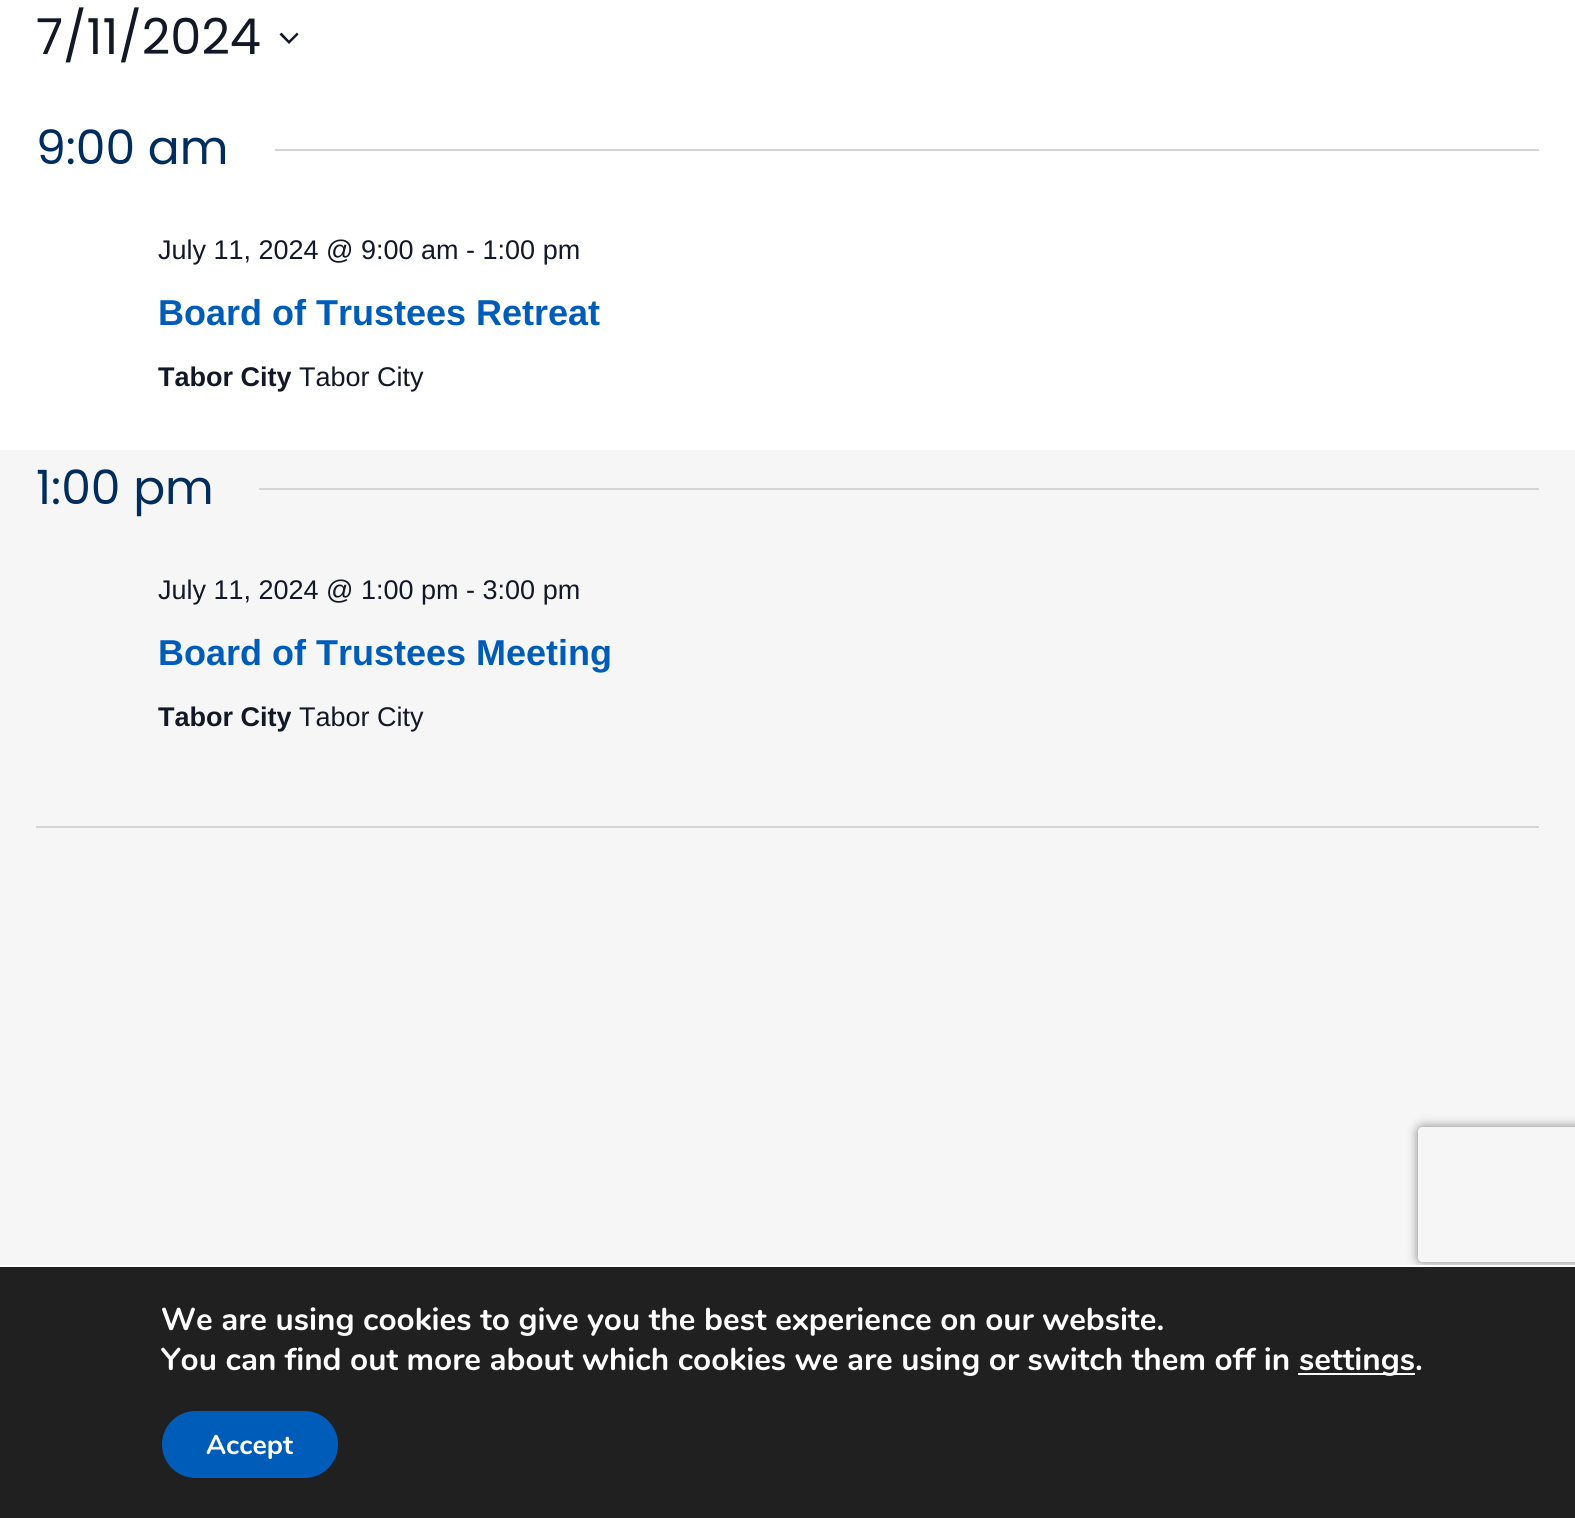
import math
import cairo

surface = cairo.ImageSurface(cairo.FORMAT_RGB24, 1575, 1518)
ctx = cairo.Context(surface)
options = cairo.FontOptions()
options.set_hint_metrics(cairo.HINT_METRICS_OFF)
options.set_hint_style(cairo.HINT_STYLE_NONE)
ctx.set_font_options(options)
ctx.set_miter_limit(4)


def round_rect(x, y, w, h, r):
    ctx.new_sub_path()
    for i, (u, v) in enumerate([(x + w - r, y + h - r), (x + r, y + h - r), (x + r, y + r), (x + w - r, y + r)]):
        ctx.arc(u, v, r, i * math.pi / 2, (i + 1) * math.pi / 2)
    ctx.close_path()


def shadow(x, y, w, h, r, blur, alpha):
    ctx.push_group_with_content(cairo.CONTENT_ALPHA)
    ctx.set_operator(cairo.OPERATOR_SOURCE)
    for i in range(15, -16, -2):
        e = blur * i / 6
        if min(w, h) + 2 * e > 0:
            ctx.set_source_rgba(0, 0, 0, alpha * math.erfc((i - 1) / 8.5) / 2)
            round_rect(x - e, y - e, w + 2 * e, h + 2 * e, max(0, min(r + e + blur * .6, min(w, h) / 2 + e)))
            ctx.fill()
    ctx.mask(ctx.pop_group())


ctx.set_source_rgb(0.961, 0.961, 0.961)
ctx.paint()
ctx.set_source_rgb(1, 1, 1)
ctx.rectangle(0, 0, 1575, 450)
ctx.fill()
ctx.select_font_face("Poppins")
ctx.set_font_size(49.5)
ctx.set_source_rgb(0.078, 0.094, 0.153)
ctx.move_to(36, 54)
ctx.show_text("7/11/2024")
ctx.set_fill_rule(cairo.FILL_RULE_EVEN_ODD)
ctx.new_path()
ctx.move_to(281.5, 32.5)
ctx.line_to(289, 40.5)
ctx.line_to(297, 32.5)
ctx.line_to(298.5, 34.5)
ctx.line_to(289, 44)
ctx.line_to(279.5, 34.5)
ctx.close_path()
ctx.fill()
ctx.set_font_size(47.25)
ctx.set_source_rgb(0, 0.176, 0.365)
ctx.move_to(36, 164)
ctx.show_text("9:00 am")
ctx.set_source_rgb(0.835, 0.835, 0.835)
ctx.rectangle(275, 149, 1264, 2)
ctx.fill()
ctx.select_font_face("Liberation Sans")
ctx.set_font_size(27)
ctx.set_source_rgb(0.078, 0.094, 0.153)
ctx.move_to(158, 259)
ctx.show_text("July 11, 2024 @ 9:00 am - 1:00 pm")
ctx.select_font_face("Liberation Sans", cairo.FONT_SLANT_NORMAL, cairo.FONT_WEIGHT_BOLD)
ctx.set_font_size(36)
ctx.set_source_rgb(0, 0.361, 0.725)
ctx.move_to(158, 325)
ctx.show_text("Board of Trustees Retreat")
ctx.set_font_size(27)
ctx.set_source_rgb(0.078, 0.094, 0.153)
ctx.move_to(158, 386)
ctx.show_text("Tabor City")
ctx.select_font_face("Liberation Sans")
ctx.move_to(299, 386)
ctx.show_text("Tabor City")
ctx.select_font_face("Poppins")
ctx.set_font_size(47.25)
ctx.set_source_rgb(0, 0.176, 0.365)
ctx.move_to(36, 504)
ctx.show_text("1:00 pm")
ctx.set_source_rgb(0.835, 0.835, 0.835)
ctx.rectangle(259, 488, 1280, 2)
ctx.fill()
ctx.select_font_face("Liberation Sans")
ctx.set_font_size(27)
ctx.set_source_rgb(0.078, 0.094, 0.153)
ctx.move_to(158, 599)
ctx.show_text("July 11, 2024 @ 1:00 pm - 3:00 pm")
ctx.select_font_face("Liberation Sans", cairo.FONT_SLANT_NORMAL, cairo.FONT_WEIGHT_BOLD)
ctx.set_font_size(36)
ctx.set_source_rgb(0, 0.361, 0.725)
ctx.move_to(158, 665)
ctx.show_text("Board of Trustees Meeting")
ctx.set_font_size(27)
ctx.set_source_rgb(0.078, 0.094, 0.153)
ctx.move_to(158, 726)
ctx.show_text("Tabor City")
ctx.select_font_face("Liberation Sans")
ctx.move_to(299, 726)
ctx.show_text("Tabor City")
ctx.set_source_rgb(0.835, 0.835, 0.835)
ctx.rectangle(36, 826, 1503, 2)
ctx.fill()
ctx.save()
ctx.new_path()
ctx.move_to(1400, 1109)
ctx.line_to(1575, 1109)
ctx.line_to(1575, 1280)
ctx.line_to(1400, 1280)
ctx.close_path()
ctx.move_to(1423, 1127)
ctx.line_to(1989, 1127)
ctx.curve_to(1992, 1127, 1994, 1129, 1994, 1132)
ctx.line_to(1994, 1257)
ctx.curve_to(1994, 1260, 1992, 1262, 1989, 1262)
ctx.line_to(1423, 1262)
ctx.curve_to(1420, 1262, 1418, 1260, 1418, 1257)
ctx.line_to(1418, 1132)
ctx.curve_to(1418, 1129, 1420, 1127, 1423, 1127)
ctx.close_path()
ctx.clip()
ctx.set_source_rgb(0.502, 0.502, 0.502)
shadow(1418, 1127, 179, 135, 5, 5.5, 1)
ctx.restore()
ctx.set_source_rgb(0.125, 0.125, 0.125)
ctx.rectangle(0, 1267, 1575, 251)
ctx.fill()
ctx.set_source_rgb(1, 1, 1)
ctx.rectangle(0, 1265, 1575, 2)
ctx.fill()
ctx.select_font_face("Nunito", cairo.FONT_SLANT_NORMAL, cairo.FONT_WEIGHT_BOLD)
ctx.set_font_size(31.5)
ctx.move_to(161, 1330)
ctx.show_text("We are using cookies to give you the best experience on our website.")
ctx.move_to(161, 1370)
ctx.show_text("You can find out more about which cookies we are using or switch them off in")
ctx.rectangle(1298, 1373, 117, 2)
ctx.fill()
ctx.move_to(1299, 1370)
ctx.show_text("settings.")
ctx.set_source_rgb(0, 0.361, 0.725)
round_rect(162, 1411, 176, 67, 33.5)
ctx.fill()
ctx.set_font_size(27)
ctx.set_source_rgb(1, 1, 1)
ctx.move_to(206, 1454)
ctx.show_text("Accept")
surface.write_to_png("page.png")
